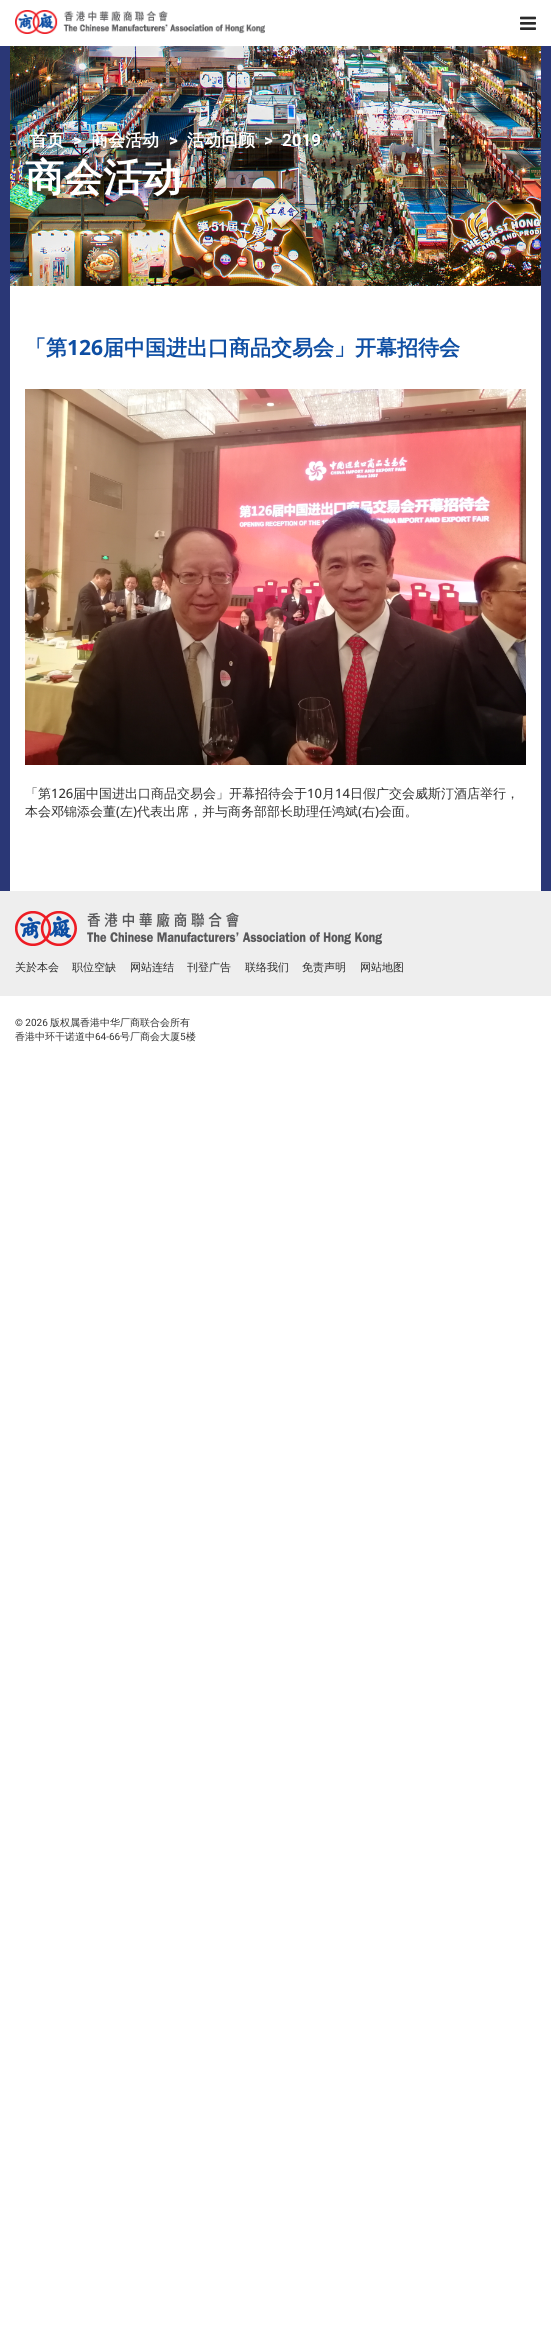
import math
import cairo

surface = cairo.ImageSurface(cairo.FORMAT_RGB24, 551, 2345)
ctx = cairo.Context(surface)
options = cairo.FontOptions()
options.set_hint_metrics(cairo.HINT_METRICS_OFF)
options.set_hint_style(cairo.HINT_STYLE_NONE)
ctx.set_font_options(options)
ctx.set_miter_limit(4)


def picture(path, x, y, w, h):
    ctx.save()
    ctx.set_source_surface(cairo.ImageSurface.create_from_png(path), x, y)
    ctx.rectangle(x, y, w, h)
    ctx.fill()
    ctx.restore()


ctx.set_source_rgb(1, 1, 1)
ctx.paint()
picture("img1.png", 15, 10, 250, 24)
picture("img2.png", 520, 16, 16, 14)
ctx.set_source_rgb(0.165, 0.216, 0.463)
ctx.rectangle(0, 46, 551, 845)
ctx.fill()
picture("img3.png", 10, 46, 531, 240)
ctx.select_font_face("WenQuanYi Zen Hei", cairo.FONT_SLANT_NORMAL, cairo.FONT_WEIGHT_BOLD)
ctx.set_font_size(17)
ctx.set_source_rgb(1, 1, 1)
ctx.move_to(30, 146)
ctx.show_text("首页")
ctx.select_font_face("Roboto", cairo.FONT_SLANT_NORMAL, cairo.FONT_WEIGHT_BOLD)
ctx.move_to(73, 146)
ctx.show_text(">")
ctx.select_font_face("WenQuanYi Zen Hei", cairo.FONT_SLANT_NORMAL, cairo.FONT_WEIGHT_BOLD)
ctx.move_to(91, 146)
ctx.show_text("商会活动")
ctx.select_font_face("Roboto", cairo.FONT_SLANT_NORMAL, cairo.FONT_WEIGHT_BOLD)
ctx.move_to(169, 146)
ctx.show_text(">")
ctx.select_font_face("WenQuanYi Zen Hei", cairo.FONT_SLANT_NORMAL, cairo.FONT_WEIGHT_BOLD)
ctx.move_to(187, 146)
ctx.show_text("活动回顾")
ctx.select_font_face("Roboto", cairo.FONT_SLANT_NORMAL, cairo.FONT_WEIGHT_BOLD)
ctx.move_to(264, 146)
ctx.show_text(">")
ctx.move_to(282, 146)
ctx.show_text("2019")
ctx.select_font_face("WenQuanYi Zen Hei", cairo.FONT_SLANT_NORMAL, cairo.FONT_WEIGHT_BOLD)
ctx.set_font_size(39)
ctx.move_to(25, 191)
ctx.show_text("商会活动")
ctx.rectangle(10, 286, 531, 605)
ctx.fill()
ctx.set_font_size(21)
ctx.set_source_rgb(0.055, 0.306, 0.639)
ctx.move_to(25, 355)
ctx.show_text("「第")
ctx.select_font_face("Open Sans", cairo.FONT_SLANT_NORMAL, cairo.FONT_WEIGHT_BOLD)
ctx.move_to(67, 355)
ctx.show_text("126")
ctx.select_font_face("WenQuanYi Zen Hei", cairo.FONT_SLANT_NORMAL, cairo.FONT_WEIGHT_BOLD)
ctx.move_to(103, 355)
ctx.show_text("届中国进出口商品交易会」开幕招待会")
picture("img4.png", 25, 389, 501, 376)
ctx.select_font_face("WenQuanYi Zen Hei Medium")
ctx.set_font_size(13)
ctx.set_source_rgb(0.2, 0.2, 0.2)
ctx.move_to(25, 798)
ctx.show_text("「第")
ctx.select_font_face("Open Sans Medium")
ctx.move_to(51, 798)
ctx.show_text("126")
ctx.select_font_face("WenQuanYi Zen Hei Medium")
ctx.move_to(73, 798)
ctx.show_text("届中国进出口商品交易会」开幕招待会于")
ctx.select_font_face("Open Sans Medium")
ctx.move_to(307, 798)
ctx.show_text("10")
ctx.select_font_face("WenQuanYi Zen Hei Medium")
ctx.move_to(322, 798)
ctx.show_text("月")
ctx.select_font_face("Open Sans Medium")
ctx.move_to(335, 798)
ctx.show_text("14")
ctx.select_font_face("WenQuanYi Zen Hei Medium")
ctx.move_to(350, 798)
ctx.show_text("日假广交会威斯汀酒店举行，")
ctx.move_to(25, 816)
ctx.show_text("本会邓锦添会董 左")
ctx.select_font_face("Open Sans Medium")
ctx.move_to(133, 816)
ctx.show_text(")")
ctx.select_font_face("WenQuanYi Zen Hei Medium")
ctx.move_to(137, 816)
ctx.show_text("代表出席，并与商务部部长助理任鸿斌 右 会面。")
ctx.select_font_face("Open Sans Medium")
ctx.move_to(116, 816)
ctx.show_text("(")
ctx.move_to(358, 816)
ctx.show_text("(")
ctx.move_to(375, 816)
ctx.show_text(")")
ctx.set_source_rgb(0.933, 0.933, 0.933)
ctx.rectangle(0, 891, 551, 105)
ctx.fill()
picture("img5.png", 15, 911, 367, 35)
ctx.select_font_face("WenQuanYi Zen Hei Medium")
ctx.set_font_size(11)
ctx.set_source_rgb(0.165, 0.165, 0.165)
ctx.move_to(15, 971)
ctx.show_text("关於本会")
ctx.move_to(72, 971)
ctx.show_text("职位空缺")
ctx.move_to(130, 971)
ctx.show_text("网站连结")
ctx.move_to(187, 971)
ctx.show_text("刊登广告")
ctx.move_to(245, 971)
ctx.show_text("联络我们")
ctx.move_to(302, 971)
ctx.show_text("免责声明")
ctx.move_to(360, 971)
ctx.show_text("网站地图")
ctx.select_font_face("Roboto")
ctx.set_font_size(10)
ctx.set_source_rgb(0.2, 0.2, 0.2)
ctx.move_to(15, 1026)
ctx.show_text("© 2026")
ctx.select_font_face("WenQuanYi Zen Hei Medium")
ctx.move_to(50, 1026)
ctx.show_text("版权属香港中华厂商联合会所有")
ctx.move_to(15, 1040)
ctx.show_text("香港中环干诺道中")
ctx.select_font_face("Roboto")
ctx.move_to(95, 1040)
ctx.show_text("64-66")
ctx.select_font_face("WenQuanYi Zen Hei Medium")
ctx.move_to(120, 1040)
ctx.show_text("号厂商会大厦")
ctx.select_font_face("Roboto")
ctx.move_to(180, 1040)
ctx.show_text("5")
ctx.select_font_face("WenQuanYi Zen Hei Medium")
ctx.move_to(186, 1040)
ctx.show_text("楼")
surface.write_to_png("page.png")
